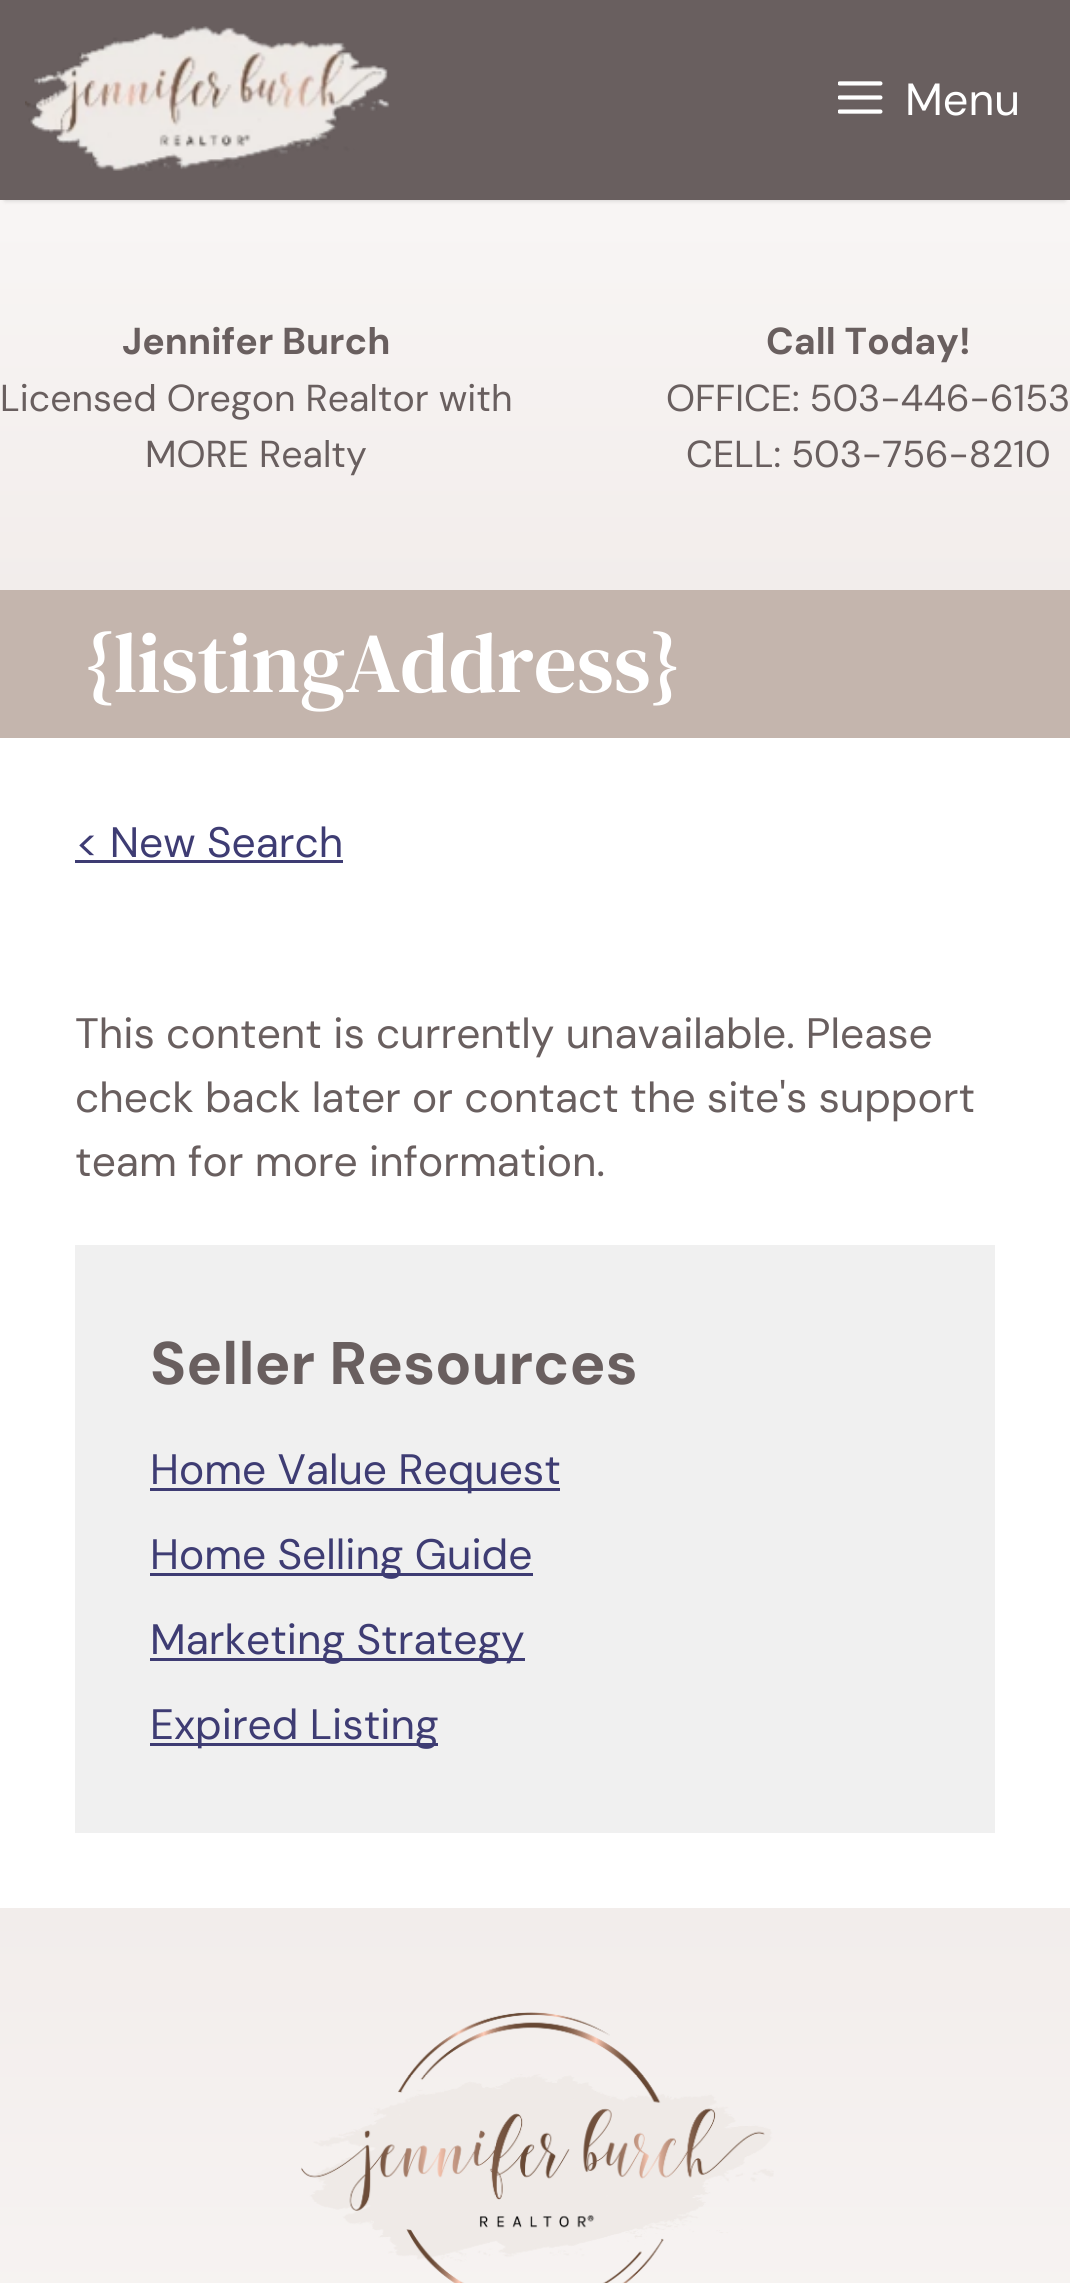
import math
import cairo

surface = cairo.ImageSurface(cairo.FORMAT_RGB24, 1070, 2283)
ctx = cairo.Context(surface)
options = cairo.FontOptions()
options.set_hint_metrics(cairo.HINT_METRICS_OFF)
options.set_hint_style(cairo.HINT_STYLE_NONE)
ctx.set_font_options(options)
ctx.set_miter_limit(4)


def round_rect(x, y, w, h, r):
    ctx.new_sub_path()
    for i, (u, v) in enumerate([(x + w - r, y + h - r), (x + r, y + h - r), (x + r, y + r), (x + w - r, y + r)]):
        ctx.arc(u, v, r, i * math.pi / 2, (i + 1) * math.pi / 2)
    ctx.close_path()


def shadow(x, y, w, h, r, blur, alpha):
    ctx.push_group_with_content(cairo.CONTENT_ALPHA)
    ctx.set_operator(cairo.OPERATOR_SOURCE)
    for i in range(15, -16, -2):
        e = blur * i / 6
        if min(w, h) + 2 * e > 0:
            ctx.set_source_rgba(0, 0, 0, alpha * math.erfc((i - 1) / 8.5) / 2)
            round_rect(x - e, y - e, w + 2 * e, h + 2 * e, max(0, min(r + e + blur * .6, min(w, h) / 2 + e)))
            ctx.fill()
    ctx.mask(ctx.pop_group())


def picture(path, x, y, w, h):
    ctx.save()
    ctx.set_source_surface(cairo.ImageSurface.create_from_png(path), x, y)
    ctx.rectangle(x, y, w, h)
    ctx.fill()
    ctx.restore()


ctx.set_source_rgb(1, 1, 1)
ctx.paint()
gradient = cairo.LinearGradient(535, -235, 535, 590)
gradient.add_color_stop_rgba(0, 1, 1, 1, 1)
gradient.add_color_stop_rgba(1, 0.949, 0.929, 0.922, 1)
ctx.set_source(gradient)
ctx.rectangle(0, 200, 1070, 390)
ctx.fill()
ctx.set_source_rgb(0, 0, 0)
shadow(5, 10, 1060, 190, 0, 2.5, 0.2)
ctx.set_source_rgb(0.412, 0.373, 0.373)
ctx.rectangle(0, 0, 1070, 200)
ctx.fill()
picture("img1.png", 25, 26, 365, 145)
picture("img2.png", 838, 81, 45, 33)
ctx.select_font_face("DM Sans")
ctx.set_font_size(45)
ctx.set_source_rgb(1, 1, 1)
ctx.move_to(905, 115)
ctx.show_text("Menu")
ctx.select_font_face("DM Sans", cairo.FONT_SLANT_NORMAL, cairo.FONT_WEIGHT_BOLD)
ctx.set_font_size(37.5)
ctx.set_source_rgb(0.412, 0.373, 0.373)
ctx.move_to(122, 354)
ctx.show_text("Jennifer Burch")
ctx.select_font_face("DM Sans")
ctx.move_to(0, 411)
ctx.show_text("Licensed Oregon Realtor with")
ctx.move_to(145, 467)
ctx.show_text("MORE Realty")
ctx.select_font_face("DM Sans", cairo.FONT_SLANT_NORMAL, cairo.FONT_WEIGHT_BOLD)
ctx.move_to(766, 354)
ctx.show_text("Call Today!")
ctx.select_font_face("DM Sans")
ctx.move_to(666, 411)
ctx.show_text("OFFICE: 503-446-6153")
ctx.move_to(686, 467)
ctx.show_text("CELL: 503-756-8210")
ctx.set_source_rgb(0.769, 0.71, 0.678)
ctx.rectangle(0, 590, 1070, 148)
ctx.fill()
ctx.select_font_face("DM Serif Text")
ctx.set_font_size(85)
ctx.set_source_rgb(1, 1, 1)
ctx.move_to(85, 692)
ctx.show_text("{listingAddress}")
ctx.select_font_face("DM Sans")
ctx.set_font_size(42.5)
ctx.set_source_rgb(0.243, 0.235, 0.451)
ctx.move_to(75, 857)
ctx.show_text("< New Search")
ctx.rectangle(75, 860, 268, 3)
ctx.fill()
ctx.set_source_rgb(0.412, 0.373, 0.373)
ctx.move_to(75, 1048)
ctx.show_text("This content is currently unavailable. Please")
ctx.move_to(75, 1112)
ctx.show_text("check back later or contact the site's support")
ctx.move_to(75, 1176)
ctx.show_text("team for more information.")
ctx.set_source_rgb(0.941, 0.941, 0.941)
ctx.rectangle(75, 1245, 920, 588)
ctx.fill()
ctx.select_font_face("DM Sans", cairo.FONT_SLANT_NORMAL, cairo.FONT_WEIGHT_BOLD)
ctx.set_font_size(60)
ctx.set_source_rgb(0.412, 0.373, 0.373)
ctx.move_to(150, 1384)
ctx.show_text("Seller Resources")
ctx.set_source_rgb(0.243, 0.235, 0.451)
ctx.rectangle(150, 1488, 410, 3)
ctx.fill()
ctx.select_font_face("DM Sans")
ctx.set_font_size(42.5)
ctx.move_to(150, 1484)
ctx.show_text("Home Value Request")
ctx.rectangle(150, 1573, 383, 3)
ctx.fill()
ctx.move_to(150, 1569)
ctx.show_text("Home Selling Guide")
ctx.rectangle(150, 1658, 375, 3)
ctx.fill()
ctx.move_to(150, 1654)
ctx.show_text("Marketing Strategy")
ctx.rectangle(150, 1743, 288, 3)
ctx.fill()
ctx.move_to(150, 1739)
ctx.show_text("Expired Listing")
gradient = cairo.LinearGradient(535, 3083, 535, 1908)
gradient.add_color_stop_rgba(0, 1, 1, 1, 1)
gradient.add_color_stop_rgba(1, 0.949, 0.929, 0.922, 1)
ctx.set_source(gradient)
ctx.rectangle(0, 1908, 1070, 375)
ctx.fill()
picture("img3.png", 301, 2012, 473, 271)
surface.write_to_png("page.png")
